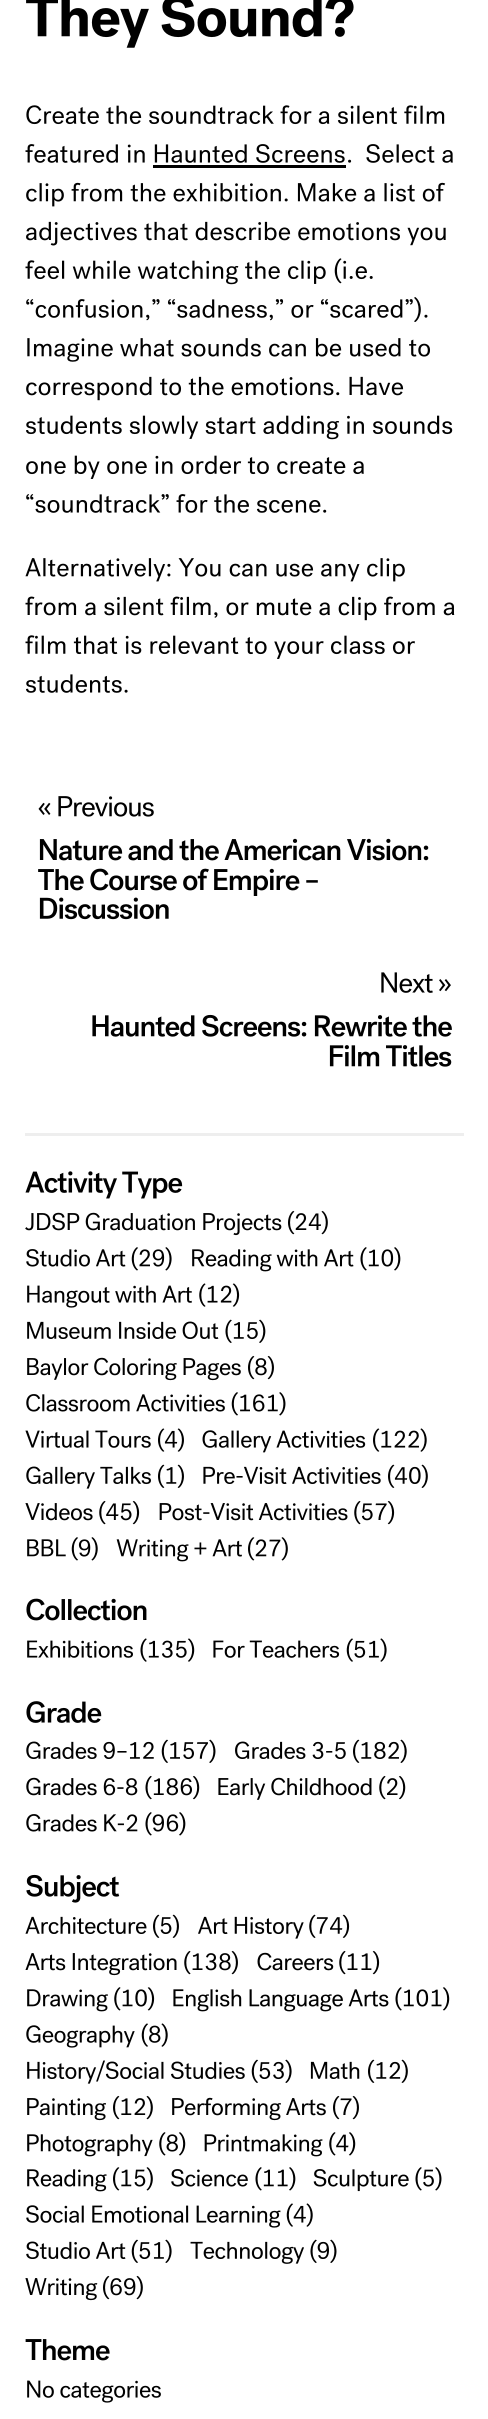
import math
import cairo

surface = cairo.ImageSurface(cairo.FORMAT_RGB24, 488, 2419)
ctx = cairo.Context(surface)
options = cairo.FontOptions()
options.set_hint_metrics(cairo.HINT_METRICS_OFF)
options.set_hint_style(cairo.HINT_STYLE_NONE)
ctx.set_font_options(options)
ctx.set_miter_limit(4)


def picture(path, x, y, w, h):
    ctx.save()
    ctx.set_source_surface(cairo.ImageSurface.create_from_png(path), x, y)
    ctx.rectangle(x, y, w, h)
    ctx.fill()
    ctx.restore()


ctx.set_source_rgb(1, 1, 1)
ctx.paint()
picture("img1.png", 26, 0, 328, 48)
picture("img2.png", 26, 105, 419, 20)
picture("img3.png", 25, 144, 120, 19)
picture("img4.png", 154, 144, 191, 19)
picture("img5.png", 348, 144, 105, 19)
ctx.set_source_rgb(0, 0, 0)
ctx.rectangle(153, 165, 193, 3)
ctx.fill()
picture("img6.png", 26, 182, 420, 25)
picture("img7.png", 26, 221, 420, 25)
picture("img8.png", 25, 258, 348, 27)
picture("img9.png", 26, 297, 402, 25)
picture("img10.png", 27, 338, 403, 24)
picture("img11.png", 26, 376, 378, 25)
picture("img12.png", 26, 415, 427, 25)
picture("img13.png", 26, 455, 338, 24)
picture("img14.png", 26, 494, 301, 19)
picture("img15.png", 25, 558, 380, 24)
picture("img16.png", 25, 596, 430, 25)
picture("img17.png", 25, 635, 390, 24)
picture("img18.png", 26, 674, 102, 19)
picture("img19.png", 38, 796, 116, 21)
picture("img20.png", 39, 838, 390, 23)
picture("img21.png", 38, 868, 280, 28)
picture("img22.png", 39, 897, 130, 23)
picture("img23.png", 381, 972, 70, 21)
picture("img24.png", 92, 1014, 215, 23)
picture("img25.png", 314, 1015, 138, 22)
picture("img26.png", 329, 1045, 123, 22)
ctx.set_source_rgb(0.933, 0.933, 0.933)
ctx.rectangle(25, 1133, 439, 3)
ctx.fill()
picture("img27.png", 25, 1171, 158, 28)
picture("img28.png", 25, 1212, 257, 24)
picture("img29.png", 288, 1210, 40, 25)
picture("img30.png", 26, 1249, 100, 18)
picture("img31.png", 131, 1247, 41, 24)
picture("img32.png", 192, 1249, 162, 23)
picture("img33.png", 360, 1247, 41, 24)
picture("img34.png", 27, 1285, 165, 23)
picture("img35.png", 199, 1283, 41, 24)
picture("img36.png", 27, 1321, 192, 18)
picture("img37.png", 225, 1319, 41, 24)
picture("img38.png", 27, 1357, 214, 24)
picture("img39.png", 248, 1355, 26, 25)
picture("img40.png", 26, 1394, 199, 18)
picture("img41.png", 231, 1392, 55, 24)
picture("img42.png", 25, 1430, 126, 18)
picture("img43.png", 158, 1428, 26, 24)
picture("img44.png", 202, 1430, 164, 23)
picture("img45.png", 373, 1428, 54, 24)
picture("img46.png", 26, 1466, 125, 23)
picture("img47.png", 158, 1464, 26, 24)
picture("img48.png", 203, 1466, 178, 18)
picture("img49.png", 388, 1464, 40, 24)
picture("img50.png", 25, 1503, 68, 18)
picture("img51.png", 99, 1500, 41, 25)
picture("img52.png", 159, 1503, 189, 18)
picture("img53.png", 354, 1500, 41, 25)
picture("img54.png", 27, 1539, 39, 18)
picture("img55.png", 71, 1537, 27, 24)
picture("img56.png", 116, 1539, 126, 23)
picture("img57.png", 248, 1537, 40, 24)
picture("img58.png", 26, 1598, 121, 23)
picture("img59.png", 27, 1640, 106, 18)
picture("img60.png", 140, 1638, 55, 24)
picture("img61.png", 213, 1640, 127, 18)
picture("img62.png", 346, 1638, 41, 24)
picture("img63.png", 26, 1701, 76, 22)
picture("img64.png", 26, 1741, 128, 18)
picture("img65.png", 161, 1739, 55, 24)
picture("img66.png", 235, 1741, 111, 18)
picture("img67.png", 353, 1739, 54, 24)
picture("img68.png", 26, 1777, 112, 19)
picture("img69.png", 145, 1775, 55, 25)
picture("img70.png", 218, 1777, 154, 23)
picture("img71.png", 379, 1775, 27, 25)
picture("img72.png", 26, 1814, 112, 18)
picture("img73.png", 145, 1812, 41, 24)
picture("img74.png", 26, 1874, 94, 29)
picture("img75.png", 25, 1916, 122, 18)
picture("img76.png", 153, 1914, 26, 24)
picture("img77.png", 198, 1916, 106, 23)
picture("img78.png", 309, 1914, 41, 24)
picture("img79.png", 25, 1953, 152, 23)
picture("img80.png", 184, 1950, 54, 25)
picture("img81.png", 257, 1952, 77, 19)
picture("img82.png", 339, 1950, 41, 25)
picture("img83.png", 27, 1989, 81, 23)
picture("img84.png", 114, 1987, 41, 24)
picture("img85.png", 173, 1989, 216, 23)
picture("img86.png", 395, 1987, 55, 24)
picture("img87.png", 26, 2025, 109, 23)
picture("img88.png", 141, 2023, 27, 24)
picture("img89.png", 27, 2060, 218, 24)
picture("img90.png", 251, 2059, 41, 24)
picture("img91.png", 310, 2061, 50, 18)
picture("img92.png", 368, 2059, 40, 24)
picture("img93.png", 27, 2098, 79, 23)
picture("img94.png", 113, 2095, 40, 25)
picture("img95.png", 172, 2097, 154, 24)
picture("img96.png", 333, 2095, 26, 25)
picture("img97.png", 27, 2134, 126, 23)
picture("img98.png", 159, 2132, 27, 24)
picture("img99.png", 204, 2134, 119, 23)
picture("img100.png", 329, 2132, 27, 24)
picture("img101.png", 27, 2169, 80, 23)
picture("img102.png", 113, 2167, 40, 24)
picture("img103.png", 171, 2169, 77, 18)
picture("img104.png", 255, 2167, 41, 24)
picture("img105.png", 313, 2169, 96, 23)
picture("img106.png", 415, 2167, 27, 24)
picture("img107.png", 26, 2205, 255, 23)
picture("img108.png", 286, 2203, 27, 24)
picture("img109.png", 26, 2241, 100, 18)
picture("img110.png", 131, 2239, 41, 24)
picture("img111.png", 190, 2241, 114, 23)
picture("img112.png", 310, 2239, 27, 24)
picture("img113.png", 25, 2278, 73, 23)
picture("img114.png", 103, 2275, 40, 25)
picture("img115.png", 25, 2339, 85, 22)
picture("img116.png", 27, 2380, 134, 23)
surface.write_to_png("page.png")
